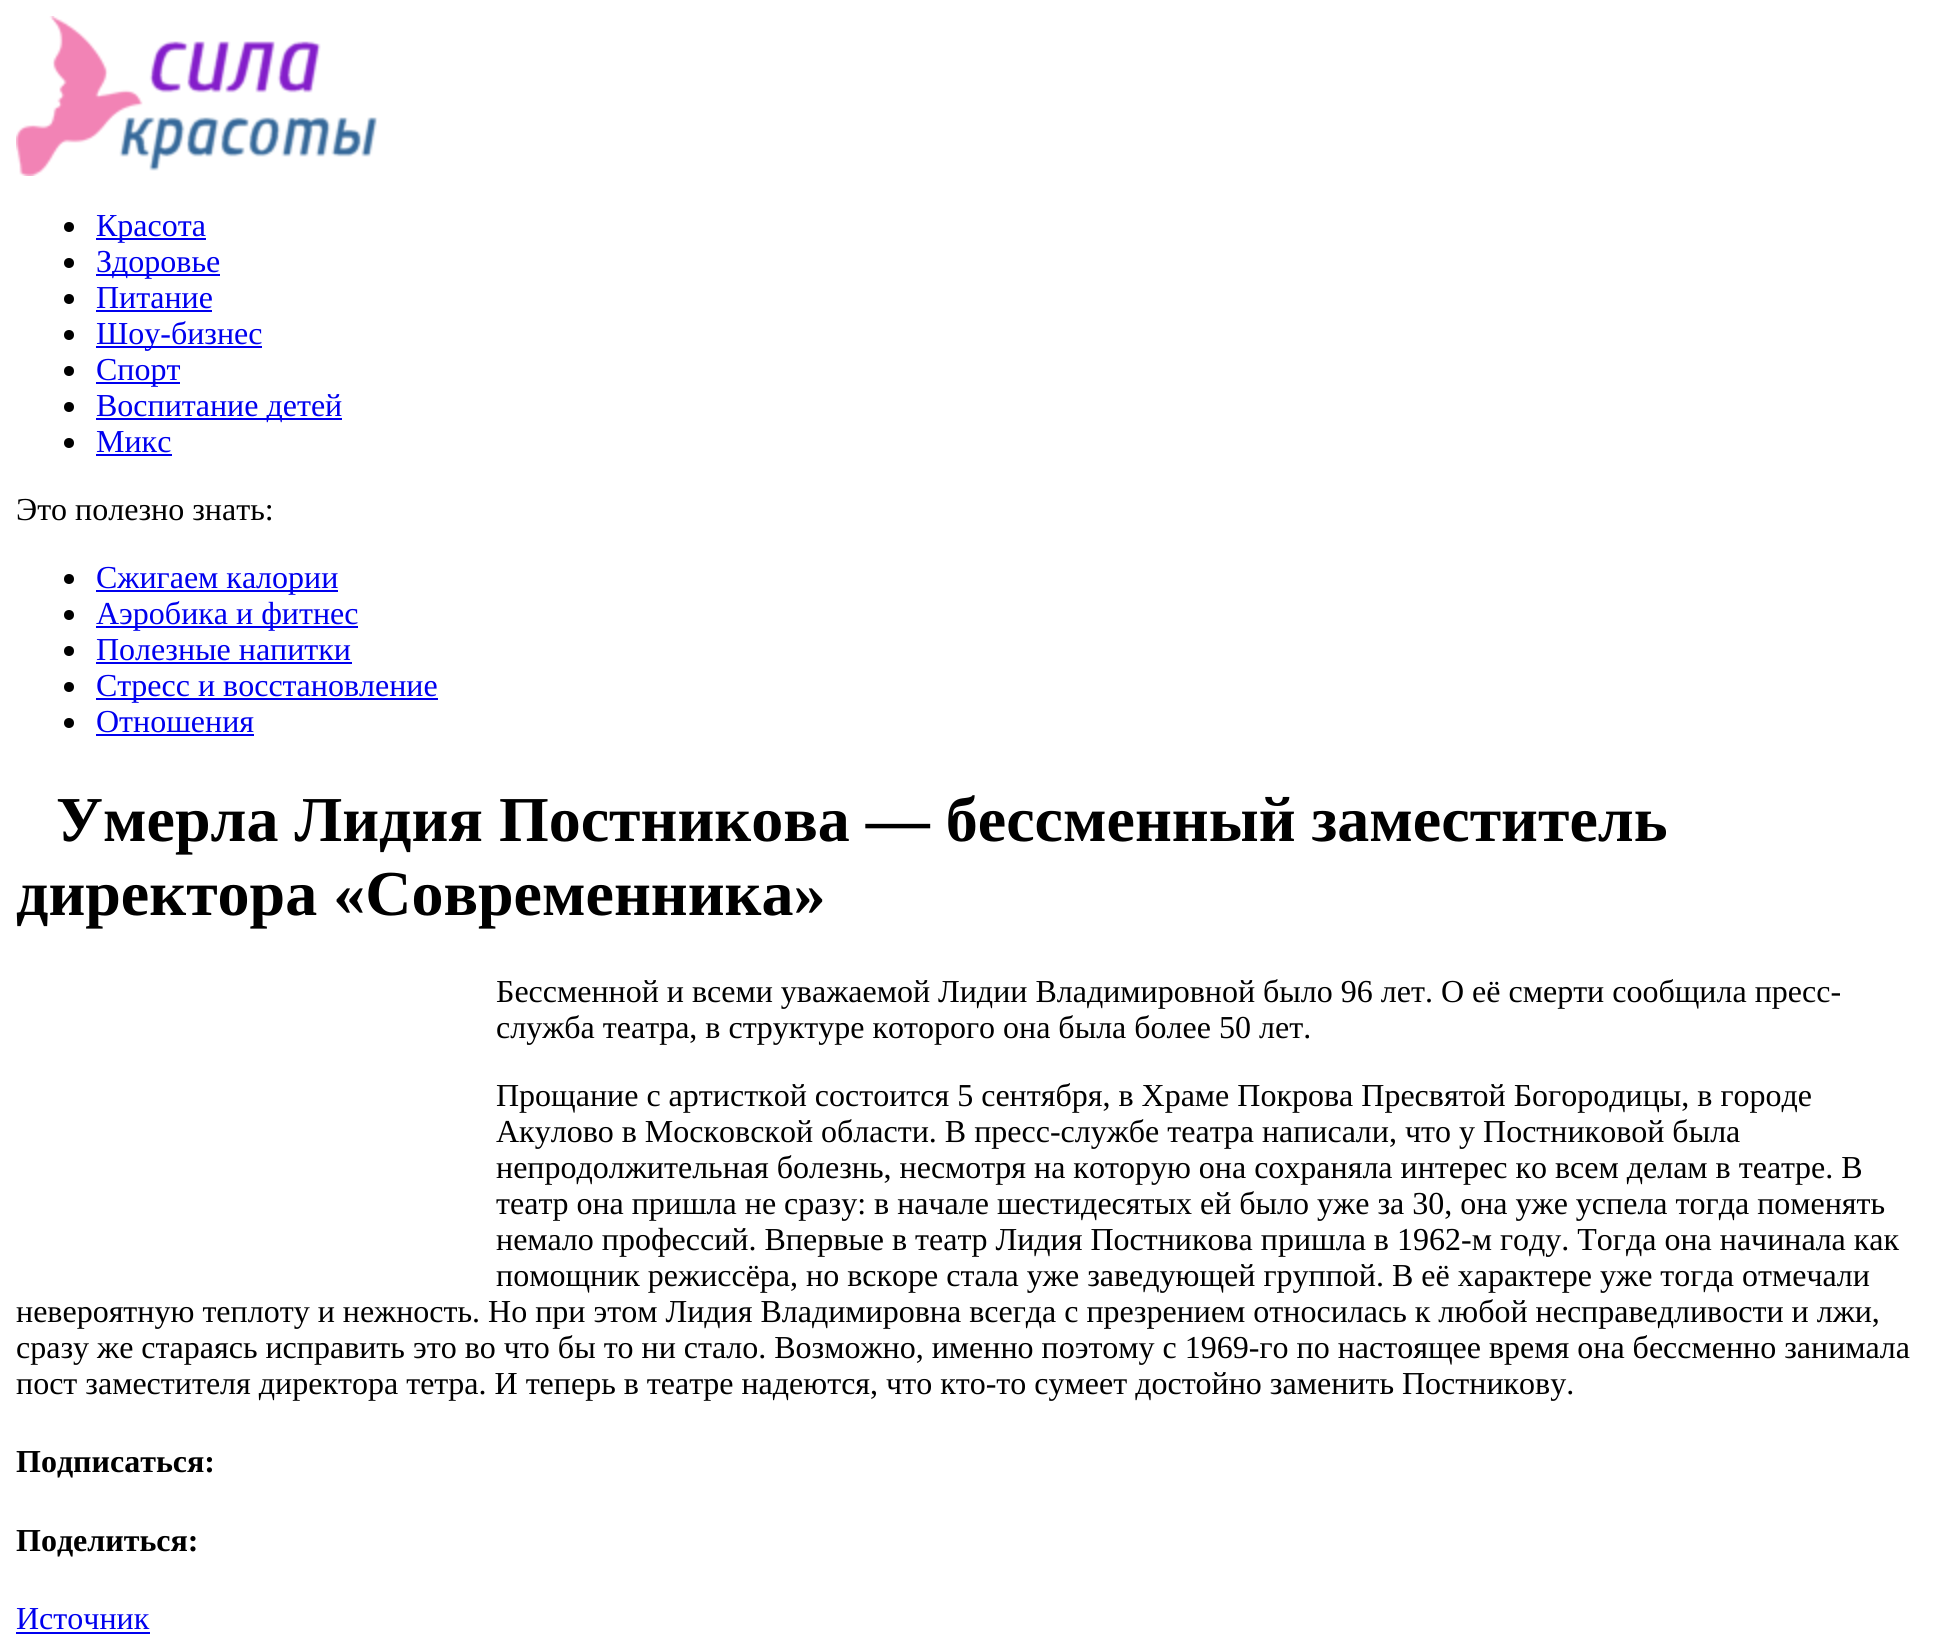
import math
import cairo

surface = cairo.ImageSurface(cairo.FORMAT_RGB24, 1934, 1641)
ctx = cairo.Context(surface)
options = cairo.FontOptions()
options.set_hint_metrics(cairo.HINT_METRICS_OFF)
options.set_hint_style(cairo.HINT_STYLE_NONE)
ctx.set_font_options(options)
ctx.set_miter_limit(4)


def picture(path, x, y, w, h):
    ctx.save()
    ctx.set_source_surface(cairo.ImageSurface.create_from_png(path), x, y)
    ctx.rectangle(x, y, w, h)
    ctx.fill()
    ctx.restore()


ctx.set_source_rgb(1, 1, 1)
ctx.paint()
picture("img1.png", 16, 16, 362, 160)
ctx.set_source_rgb(0, 0, 0)
ctx.arc(69, 227, 5, 0, 2 * math.pi)
ctx.fill()
ctx.set_source_rgb(0, 0, 0.933)
ctx.rectangle(96, 238, 110, 2)
ctx.fill()
ctx.select_font_face("Liberation Serif")
ctx.set_font_size(32)
ctx.move_to(96, 236)
ctx.show_text("Красота")
ctx.set_source_rgb(0, 0, 0)
ctx.new_path()
ctx.arc(69, 263, 5, 0, 2 * math.pi)
ctx.fill()
ctx.set_source_rgb(0, 0, 0.933)
ctx.rectangle(96, 274, 124, 2)
ctx.fill()
ctx.move_to(96, 272)
ctx.show_text("Здоровье")
ctx.set_source_rgb(0, 0, 0)
ctx.new_path()
ctx.arc(69, 299, 5, 0, 2 * math.pi)
ctx.fill()
ctx.set_source_rgb(0, 0, 0.933)
ctx.move_to(96, 308)
ctx.show_text("Питание")
ctx.rectangle(96, 310, 116, 2)
ctx.fill()
ctx.set_source_rgb(0, 0, 0)
ctx.arc(69, 335, 5, 0, 2 * math.pi)
ctx.fill()
ctx.set_source_rgb(0, 0, 0.933)
ctx.rectangle(96, 346, 166, 2)
ctx.fill()
ctx.move_to(96, 344)
ctx.show_text("Шоу-бизнес")
ctx.set_source_rgb(0, 0, 0)
ctx.new_path()
ctx.arc(69, 371, 5, 0, 2 * math.pi)
ctx.fill()
ctx.set_source_rgb(0, 0, 0.933)
ctx.rectangle(96, 382, 84, 2)
ctx.fill()
ctx.move_to(96, 380)
ctx.show_text("Спорт")
ctx.set_source_rgb(0, 0, 0)
ctx.new_path()
ctx.arc(69, 407, 5, 0, 2 * math.pi)
ctx.fill()
ctx.set_source_rgb(0, 0, 0.933)
ctx.rectangle(96, 418, 246, 2)
ctx.fill()
ctx.move_to(96, 416)
ctx.show_text("Воспитание детей")
ctx.set_source_rgb(0, 0, 0)
ctx.new_path()
ctx.arc(69, 443, 5, 0, 2 * math.pi)
ctx.fill()
ctx.set_source_rgb(0, 0, 0.933)
ctx.move_to(96, 452)
ctx.show_text("Микс")
ctx.rectangle(96, 454, 76, 2)
ctx.fill()
ctx.set_source_rgb(0, 0, 0)
ctx.move_to(16, 520)
ctx.show_text("Это полезно знать:")
ctx.new_path()
ctx.arc(69, 579, 5, 0, 2 * math.pi)
ctx.fill()
ctx.set_source_rgb(0, 0, 0.933)
ctx.rectangle(96, 590, 242, 2)
ctx.fill()
ctx.move_to(96, 588)
ctx.show_text("Сжигаем калории")
ctx.set_source_rgb(0, 0, 0)
ctx.new_path()
ctx.arc(69, 615, 5, 0, 2 * math.pi)
ctx.fill()
ctx.set_source_rgb(0, 0, 0.933)
ctx.rectangle(96, 626, 262, 2)
ctx.fill()
ctx.move_to(96, 624)
ctx.show_text("Аэробика и фитнес")
ctx.set_source_rgb(0, 0, 0)
ctx.new_path()
ctx.arc(69, 651, 5, 0, 2 * math.pi)
ctx.fill()
ctx.set_source_rgb(0, 0, 0.933)
ctx.move_to(96, 660)
ctx.show_text("Полезные напитки")
ctx.rectangle(96, 662, 256, 2)
ctx.fill()
ctx.set_source_rgb(0, 0, 0)
ctx.arc(69, 687, 5, 0, 2 * math.pi)
ctx.fill()
ctx.set_source_rgb(0, 0, 0.933)
ctx.rectangle(96, 698, 342, 2)
ctx.fill()
ctx.move_to(96, 696)
ctx.show_text("Стресс и восстановление")
ctx.set_source_rgb(0, 0, 0)
ctx.new_path()
ctx.arc(69, 723, 5, 0, 2 * math.pi)
ctx.fill()
ctx.set_source_rgb(0, 0, 0.933)
ctx.move_to(96, 732)
ctx.show_text("Отношения")
ctx.rectangle(96, 734, 158, 2)
ctx.fill()
ctx.select_font_face("Liberation Serif", cairo.FONT_SLANT_NORMAL, cairo.FONT_WEIGHT_BOLD)
ctx.set_font_size(64)
ctx.set_source_rgb(0, 0, 0)
ctx.move_to(56, 841)
ctx.show_text("Умерла Лидия Постникова — бессменный заместитель")
ctx.move_to(16, 915)
ctx.show_text("директора «Современника»")
ctx.select_font_face("Liberation Serif")
ctx.set_font_size(32)
ctx.move_to(496, 1002)
ctx.show_text("Бессменной и всеми уважаемой Лидии Владимировной было 96 лет. О её смерти сообщила пресс-")
ctx.move_to(496, 1038)
ctx.show_text("служба театра, в структуре которого она была более 50 лет.")
ctx.move_to(496, 1106)
ctx.show_text("Прощание с артисткой состоится 5 сентября, в Храме Покрова Пресвятой Богородицы, в городе")
ctx.move_to(496, 1142)
ctx.show_text("Акулово в Московской области. В пресс-службе театра написали, что у Постниковой была")
ctx.move_to(496, 1178)
ctx.show_text("непродолжительная болезнь, несмотря на которую она сохраняла интерес ко всем делам в театре. В")
ctx.move_to(496, 1214)
ctx.show_text("театр она пришла не сразу: в начале шестидесятых ей было уже за 30, она уже успела тогда поменять")
ctx.move_to(496, 1250)
ctx.show_text("немало профессий. Впервые в театр Лидия Постникова пришла в 1962-м году. Тогда она начинала как")
ctx.move_to(496, 1286)
ctx.show_text("помощник режиссёра, но вскоре стала уже заведующей группой. В её характере уже тогда отмечали")
ctx.move_to(16, 1322)
ctx.show_text("невероятную теплоту и нежность. Но при этом Лидия Владимировна всегда с презрением относилась к любой несправедливости и лжи,")
ctx.move_to(16, 1358)
ctx.show_text("сразу же стараясь исправить это во что бы то ни стало. Возможно, именно поэтому с 1969-го по настоящее время она бессменно занимала")
ctx.move_to(16, 1394)
ctx.show_text("пост заместителя директора тетра. И теперь в театре надеются, что кто-то сумеет достойно заменить Постникову.")
ctx.select_font_face("Liberation Serif", cairo.FONT_SLANT_NORMAL, cairo.FONT_WEIGHT_BOLD)
ctx.move_to(16, 1472)
ctx.show_text("Подписаться:")
ctx.move_to(16, 1551)
ctx.show_text("Поделиться:")
ctx.select_font_face("Liberation Serif")
ctx.set_source_rgb(0, 0, 0.933)
ctx.move_to(16, 1629)
ctx.show_text("Источник")
ctx.rectangle(16, 1632, 134, 2)
ctx.fill()
surface.write_to_png("page.png")
